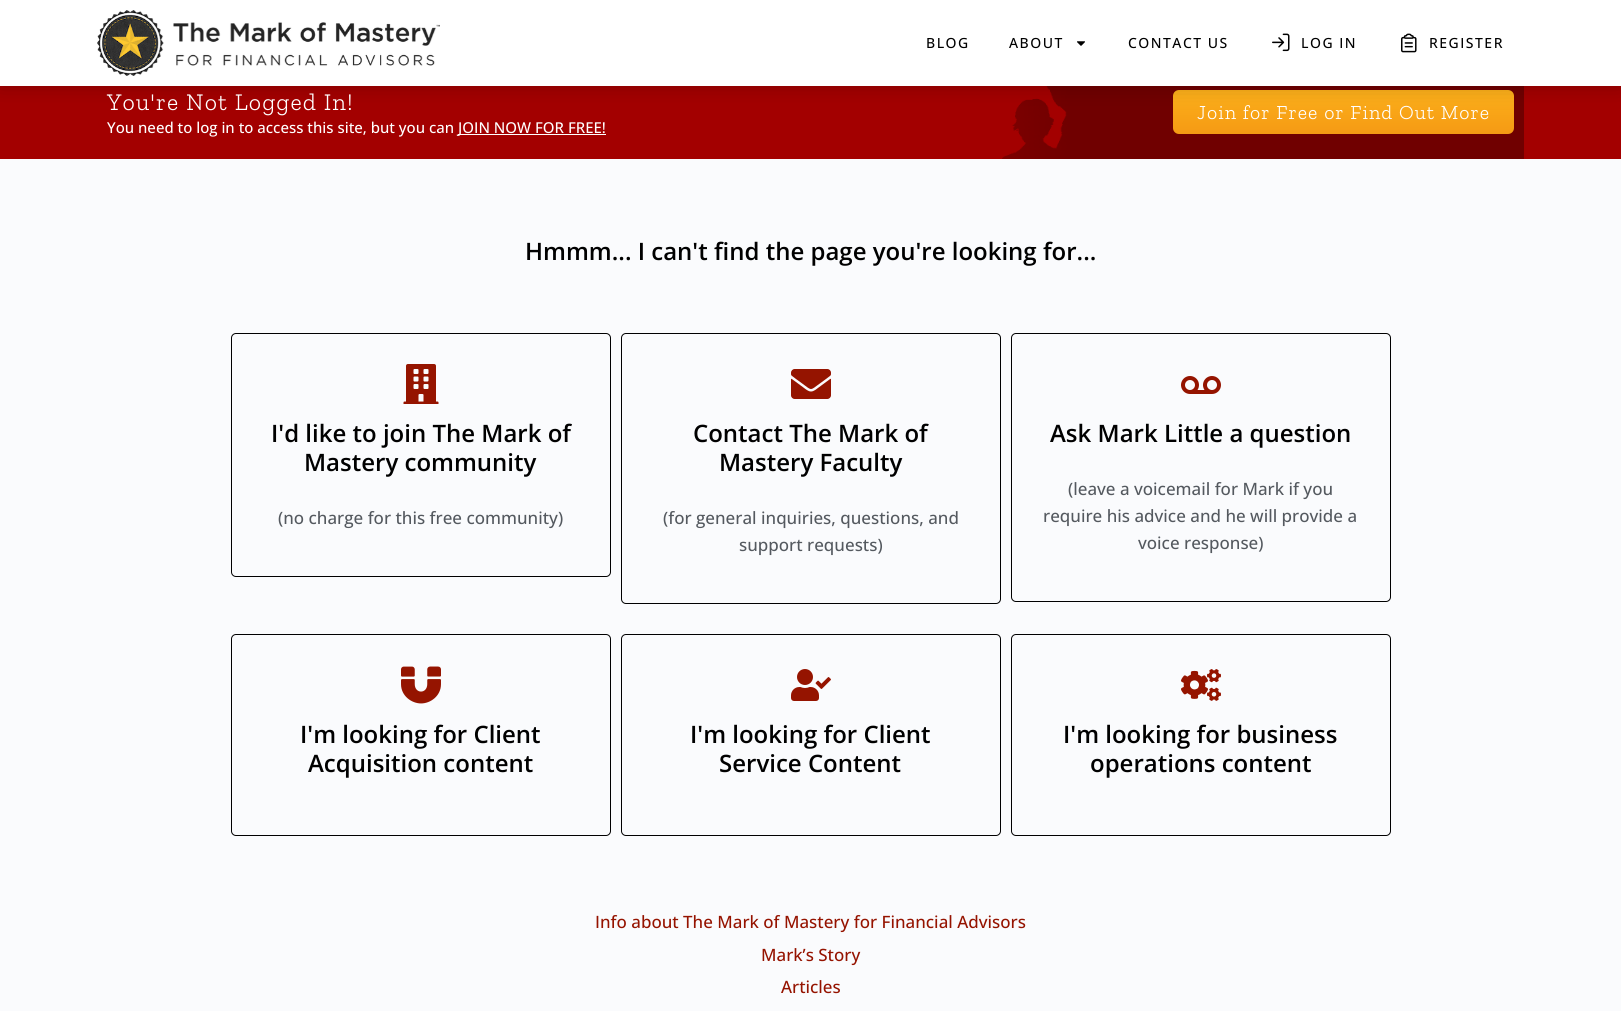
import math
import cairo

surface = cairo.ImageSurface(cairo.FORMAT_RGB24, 1621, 1011)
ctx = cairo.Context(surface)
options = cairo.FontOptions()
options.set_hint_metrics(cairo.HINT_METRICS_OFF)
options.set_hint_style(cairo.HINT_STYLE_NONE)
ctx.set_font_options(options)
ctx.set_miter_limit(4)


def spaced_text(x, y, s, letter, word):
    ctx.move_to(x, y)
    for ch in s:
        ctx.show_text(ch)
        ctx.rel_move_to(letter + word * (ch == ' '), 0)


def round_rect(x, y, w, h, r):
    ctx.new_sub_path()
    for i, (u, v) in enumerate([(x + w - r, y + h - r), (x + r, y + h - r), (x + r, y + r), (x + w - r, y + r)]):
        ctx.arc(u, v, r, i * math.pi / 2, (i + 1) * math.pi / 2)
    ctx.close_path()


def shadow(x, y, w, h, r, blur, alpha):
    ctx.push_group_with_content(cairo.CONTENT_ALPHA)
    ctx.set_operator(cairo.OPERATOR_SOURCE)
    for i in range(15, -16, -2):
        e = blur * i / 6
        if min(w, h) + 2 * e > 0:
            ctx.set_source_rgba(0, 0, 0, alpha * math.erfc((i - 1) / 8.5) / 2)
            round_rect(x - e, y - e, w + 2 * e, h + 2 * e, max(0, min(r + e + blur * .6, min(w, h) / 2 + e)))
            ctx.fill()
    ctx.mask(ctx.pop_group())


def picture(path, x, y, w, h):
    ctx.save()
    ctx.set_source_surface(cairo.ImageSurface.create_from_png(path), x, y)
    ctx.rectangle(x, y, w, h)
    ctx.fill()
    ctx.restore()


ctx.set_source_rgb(0.98, 0.984, 0.992)
ctx.paint()
ctx.set_source_rgb(0.639, 0, 0)
ctx.rectangle(0, 86, 1621, 73)
ctx.fill()
picture("img5.png", 1002, 86, 522, 73)
gradient = cairo.LinearGradient(1344, 90, 1344, 134)
gradient.add_color_stop_rgba(0, 0.992, 0.69, 0.102, 1)
gradient.add_color_stop_rgba(1, 0.961, 0.604, 0.078, 1)
ctx.set_source(gradient)
round_rect(1173, 90, 341, 44, 6)
ctx.fill()
ctx.set_source_rgb(0, 0, 0)
shadow(0, 0, 1621, 86, 0, 11, 0.21)
ctx.set_source_rgb(1, 1, 1)
ctx.rectangle(0, 0, 1621, 86)
ctx.fill()
picture("img1.png", 97, 10, 343, 66)
ctx.select_font_face("Open Sans Medium")
ctx.set_font_size(14)
ctx.set_source_rgb(0, 0, 0)
spaced_text(926, 48, "BLOG", 1.5, 0)
spaced_text(1009, 48, "ABOUT", 1.5, 0)
picture("img2.png", 1077, 41, 8, 5)
spaced_text(1128, 48, "CONTACT US", 1.5, 0)
picture("img3.png", 1272, 33, 18, 19)
spaced_text(1301, 48, "LOG IN", 1.5, 0)
picture("img4.png", 1401, 33, 16, 20)
spaced_text(1429, 48, "REGISTER", 1.5, 0)
ctx.select_font_face("Zilla Slab Light")
ctx.set_font_size(24)
ctx.set_source_rgb(1, 1, 1)
spaced_text(107, 110, "You're Not Logged In!", 1.1, 0)
ctx.select_font_face("Open Sans Medium")
ctx.set_font_size(15)
ctx.move_to(107, 133)
ctx.show_text("You need to log in to access this site, but you can")
ctx.rectangle(458, 134, 148, 1)
ctx.fill()
ctx.move_to(458, 133)
ctx.show_text("JOIN NOW FOR FREE!")
ctx.select_font_face("Zilla Slab Light")
ctx.set_font_size(20)
spaced_text(1197, 119, "Join for Free or Find Out More", 1, 0)
ctx.select_font_face("Open Sans SemiBold")
ctx.set_font_size(24)
ctx.set_source_rgb(0, 0, 0)
ctx.move_to(525, 260)
ctx.show_text("Hmmm... I can't find the page you're looking for...")
round_rect(231.5, 333.5, 379, 243, 4.5)
ctx.set_line_width(1)
ctx.stroke()
picture("img6.png", 403, 364, 36, 40)
ctx.move_to(271, 442)
ctx.show_text("I'd like to join The Mark of")
ctx.move_to(304, 471)
ctx.show_text("Mastery community")
ctx.select_font_face("Open Sans Medium")
ctx.set_font_size(17)
ctx.set_source_rgb(0.329, 0.349, 0.373)
ctx.move_to(278, 524)
ctx.show_text("(no charge for this free community)")
round_rect(621.5, 333.5, 379, 270, 4.5)
ctx.set_source_rgb(0, 0, 0)
ctx.stroke()
picture("img7.png", 791, 369, 40, 30)
ctx.select_font_face("Open Sans SemiBold")
ctx.set_font_size(24)
ctx.move_to(693, 442)
ctx.show_text("Contact The Mark of")
ctx.move_to(719, 471)
ctx.show_text("Mastery Faculty")
ctx.select_font_face("Open Sans Medium")
ctx.set_font_size(17)
ctx.set_source_rgb(0.329, 0.349, 0.373)
ctx.move_to(663, 524)
ctx.show_text("(for general inquiries, questions, and")
ctx.move_to(739, 551)
ctx.show_text("support requests)")
round_rect(1011.5, 333.5, 379, 268, 4.5)
ctx.set_source_rgb(0, 0, 0)
ctx.stroke()
picture("img8.png", 1181, 376, 40, 18)
ctx.select_font_face("Open Sans SemiBold")
ctx.set_font_size(24)
ctx.move_to(1050, 442)
ctx.show_text("Ask Mark Little a question")
ctx.select_font_face("Open Sans Medium")
ctx.set_font_size(17)
ctx.set_source_rgb(0.329, 0.349, 0.373)
ctx.move_to(1068, 495)
ctx.show_text("(leave a voicemail for Mark if you")
ctx.move_to(1043, 522)
ctx.show_text("require his advice and he will provide a")
ctx.move_to(1138, 549)
ctx.show_text("voice response)")
round_rect(231.5, 634.5, 379, 201, 4.5)
ctx.set_source_rgb(0, 0, 0)
ctx.stroke()
picture("img9.png", 401, 666, 40, 38)
ctx.select_font_face("Open Sans SemiBold")
ctx.set_font_size(24)
ctx.move_to(300, 743)
ctx.show_text("I'm looking for Client")
ctx.move_to(308, 772)
ctx.show_text("Acquisition content")
round_rect(621.5, 634.5, 379, 201, 4.5)
ctx.stroke()
picture("img10.png", 791, 669, 40, 32)
ctx.move_to(690, 743)
ctx.show_text("I'm looking for Client")
ctx.move_to(719, 772)
ctx.show_text("Service Content")
round_rect(1011.5, 634.5, 379, 201, 4.5)
ctx.stroke()
picture("img11.png", 1181, 669, 40, 32)
ctx.move_to(1063, 743)
ctx.show_text("I'm looking for business")
ctx.move_to(1090, 772)
ctx.show_text("operations content")
ctx.select_font_face("Open Sans Medium")
ctx.set_font_size(17)
ctx.set_source_rgb(0.584, 0.078, 0)
ctx.move_to(595, 928)
ctx.show_text("Info about The Mark of Mastery for Financial Advisors")
ctx.move_to(761, 961)
ctx.show_text("Mark’s Story")
ctx.move_to(781, 993)
ctx.show_text("Articles")
surface.write_to_png("page.png")
